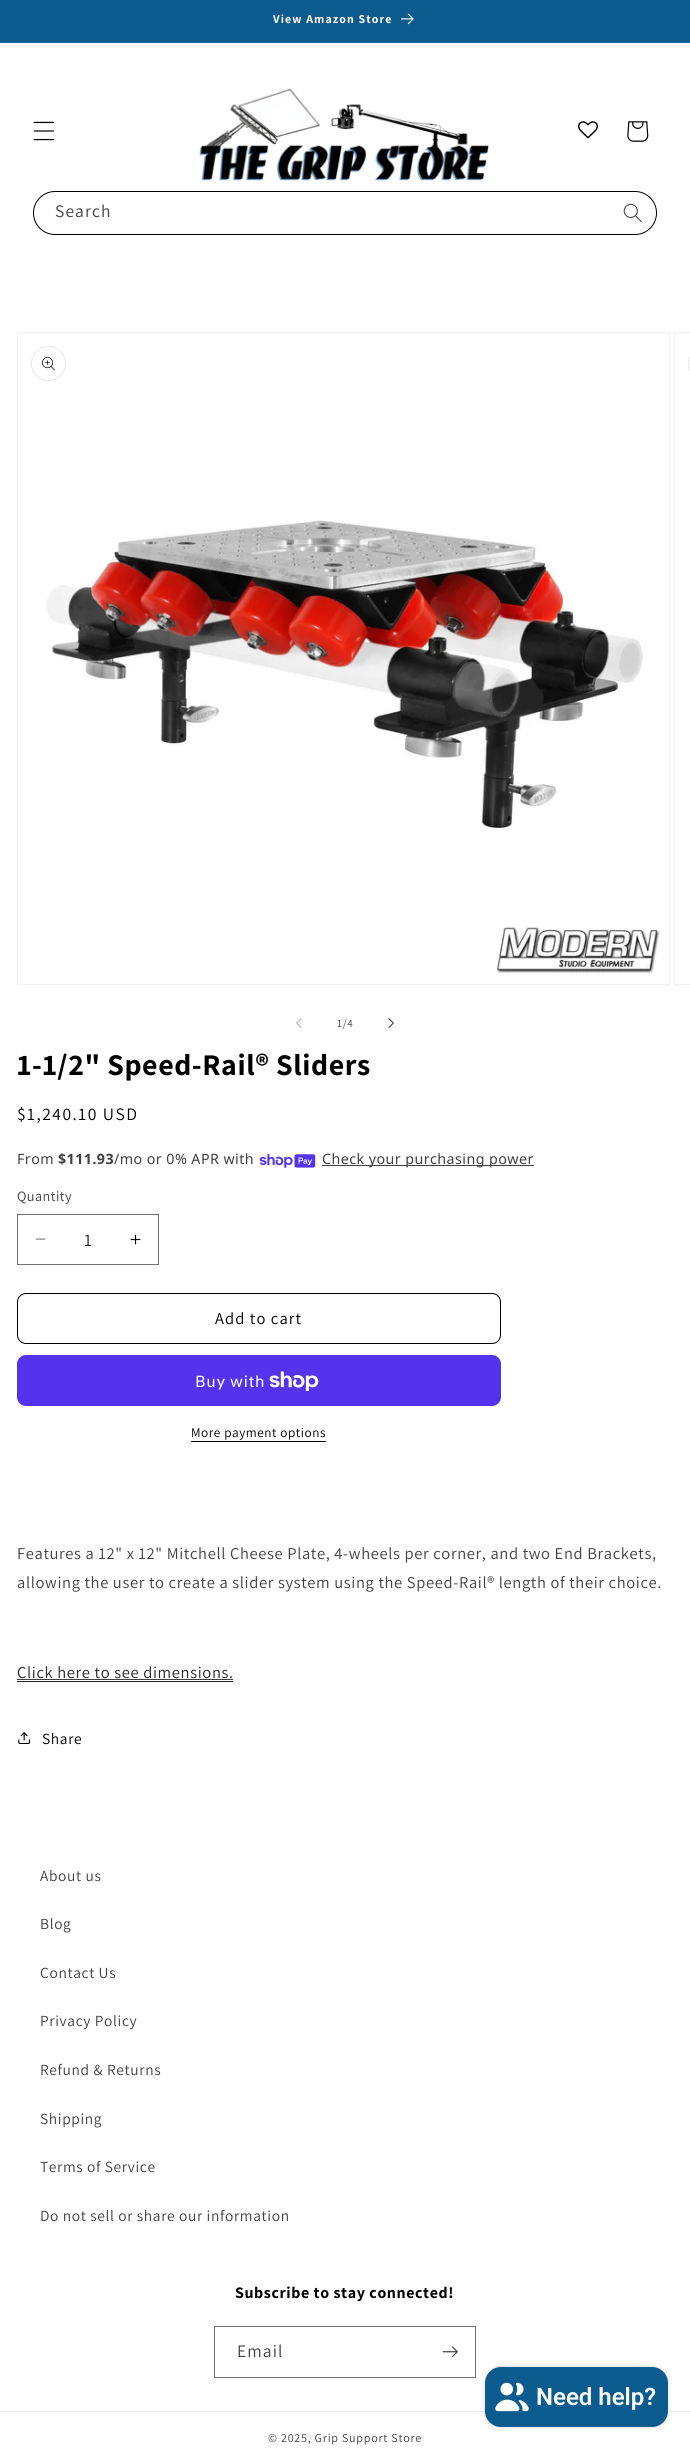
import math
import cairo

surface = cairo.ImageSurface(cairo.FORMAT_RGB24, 690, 2448)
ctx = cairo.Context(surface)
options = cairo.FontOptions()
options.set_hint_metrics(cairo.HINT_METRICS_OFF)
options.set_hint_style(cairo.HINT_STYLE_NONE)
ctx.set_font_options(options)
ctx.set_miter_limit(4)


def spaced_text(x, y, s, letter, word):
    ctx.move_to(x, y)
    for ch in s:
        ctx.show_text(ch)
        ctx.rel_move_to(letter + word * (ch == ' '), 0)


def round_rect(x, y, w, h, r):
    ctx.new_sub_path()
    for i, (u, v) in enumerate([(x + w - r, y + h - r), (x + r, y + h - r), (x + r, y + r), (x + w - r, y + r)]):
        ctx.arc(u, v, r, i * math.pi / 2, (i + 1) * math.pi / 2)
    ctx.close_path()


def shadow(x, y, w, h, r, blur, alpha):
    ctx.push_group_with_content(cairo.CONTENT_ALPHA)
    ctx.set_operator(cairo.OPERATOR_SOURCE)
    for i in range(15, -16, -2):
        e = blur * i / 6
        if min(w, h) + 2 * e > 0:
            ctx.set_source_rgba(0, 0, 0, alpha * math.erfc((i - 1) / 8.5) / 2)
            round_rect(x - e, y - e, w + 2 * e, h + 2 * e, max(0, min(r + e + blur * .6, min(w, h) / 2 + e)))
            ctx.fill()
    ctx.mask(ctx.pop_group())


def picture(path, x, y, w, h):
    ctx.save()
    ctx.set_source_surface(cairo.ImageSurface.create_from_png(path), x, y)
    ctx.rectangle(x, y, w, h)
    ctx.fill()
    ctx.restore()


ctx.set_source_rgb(1, 1, 1)
ctx.paint()
ctx.set_source_rgb(0.043, 0.357, 0.557)
ctx.rectangle(0, 0, 690, 42)
ctx.fill()
ctx.set_source_rgb(0.122, 0.408, 0.592)
ctx.rectangle(0, 42, 690, 1)
ctx.fill()
ctx.select_font_face("Assistant", cairo.FONT_SLANT_NORMAL, cairo.FONT_WEIGHT_BOLD)
ctx.set_font_size(12)
ctx.set_source_rgb(1, 1, 1)
spaced_text(273, 23, "View Amazon Store", 1.1, 0)
picture("img1.png", 401, 13, 13, 12)
picture("img2.png", 33, 121, 21, 20)
picture("img3.png", 199, 88, 290, 93)
picture("img4.png", 578, 121, 20, 18)
picture("img5.png", 627, 121, 22, 21)
picture("img6.png", 623, 203, 19, 19)
round_rect(33.5, 191.5, 623, 43, 21.5)
ctx.set_source_rgb(0, 0, 0)
ctx.set_line_width(1)
ctx.stroke()
ctx.select_font_face("Assistant")
ctx.set_font_size(17.5)
ctx.set_source_rgb(0.251, 0.251, 0.251)
spaced_text(55, 217, "Search", 1.1, 0)
ctx.rectangle(17.5, 332.5, 652, 652)
ctx.set_source_rgb(0.949, 0.949, 0.949)
ctx.stroke()
ctx.arc(48.5, 363.5, 17, 0, 2 * math.pi)
ctx.set_source_rgb(0.902, 0.902, 0.902)
ctx.stroke()
picture("img7.png", 42, 357, 13, 14)
picture("img8.png", 46, 520, 615, 456)
ctx.rectangle(674.5, 332.5, 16, 652)
ctx.set_source_rgb(0.949, 0.949, 0.949)
ctx.stroke()
round_rect(688.5, 346.5, 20, 34, 17)
ctx.set_source_rgb(0.902, 0.902, 0.902)
ctx.stroke()
picture("img9.png", 296, 1018, 6, 10)
ctx.set_font_size(11)
ctx.set_source_rgb(0.251, 0.251, 0.251)
spaced_text(337, 1027, "1/4", 0.75, 0)
picture("img10.png", 388, 1018, 6, 10)
ctx.select_font_face("Assistant", cairo.FONT_SLANT_NORMAL, cairo.FONT_WEIGHT_BOLD)
ctx.set_font_size(30)
ctx.set_source_rgb(0, 0, 0)
spaced_text(17, 1075, "1-1/2\" Speed-Rail® Sliders", 0.6, 0)
ctx.select_font_face("Assistant")
ctx.set_font_size(17.5)
spaced_text(17, 1120, "$1,240.10 USD", 1.5, 0)
ctx.select_font_face("Noto Sans")
ctx.set_font_size(14.25)
ctx.set_source_rgb(0.251, 0.251, 0.251)
spaced_text(17, 1164, "From", 0.45, 0)
ctx.select_font_face("Noto Sans", cairo.FONT_SLANT_NORMAL, cairo.FONT_WEIGHT_BOLD)
spaced_text(58, 1164, "$111.93", 0.45, 0)
ctx.select_font_face("Noto Sans")
spaced_text(114, 1164, "/mo or 0% APR with", 0.45, 0)
picture("img11.png", 259, 1154, 57, 14)
ctx.rectangle(322, 1165, 212, 1)
ctx.fill()
spaced_text(322, 1164, "Check your purchasing power", 0.45, 0)
ctx.select_font_face("Assistant")
spaced_text(17, 1201, "Quantity", 0.45, 0)
picture("img12.png", 35, 1238, 11, 2)
picture("img13.png", 130, 1234, 11, 11)
ctx.rectangle(17.5, 1214.5, 141, 50)
ctx.set_source_rgb(0.451, 0.451, 0.451)
ctx.stroke()
ctx.set_font_size(17.5)
ctx.set_source_rgb(0.149, 0.149, 0.149)
ctx.move_to(84, 1246)
ctx.show_text("1")
round_rect(17.5, 1293.5, 483, 50, 8.5)
ctx.set_source_rgb(0, 0, 0)
ctx.stroke()
ctx.set_font_size(16.5)
spaced_text(215, 1324, "Add to cart", 1.1, 0)
ctx.set_source_rgb(0.329, 0.2, 0.922)
round_rect(17, 1355, 484, 51, 9)
ctx.fill()
ctx.select_font_face("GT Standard")
ctx.set_font_size(16)
ctx.set_source_rgb(1, 1, 1)
spaced_text(195, 1387, "Buy with", 0.65, 0)
picture("img14.png", 269, 1371, 50, 20)
ctx.select_font_face("Assistant")
ctx.set_font_size(13.25)
ctx.set_source_rgb(0, 0, 0)
spaced_text(191, 1437, "More payment options", 0.55, 0)
ctx.rectangle(191, 1441, 135, 1)
ctx.fill()
ctx.set_font_size(16.5)
ctx.set_source_rgb(0.251, 0.251, 0.251)
spaced_text(17, 1559, "Features a 12\" x 12\" Mitchell Cheese Plate, 4-wheels per corner, and two End Brackets,", 0.65, 0)
spaced_text(17, 1588, "allowing the user to create a slider system using the Speed-Rail® length of their choice.", 0.65, 0)
ctx.set_source_rgb(0.149, 0.149, 0.149)
spaced_text(17, 1678, "Click here to see dimensions.", 0.65, 0)
ctx.rectangle(17, 1681, 216, 1)
ctx.fill()
ctx.set_source_rgb(0.251, 0.251, 0.251)
ctx.rectangle(17, 1679, 216, 1)
ctx.fill()
picture("img15.png", 18, 1732, 13, 12)
ctx.set_font_size(15.4)
ctx.set_source_rgb(0, 0, 0)
spaced_text(42, 1744, "Share", 0.65, 0)
ctx.set_source_rgb(0.251, 0.251, 0.251)
spaced_text(40, 1881, "About us", 0.65, 0)
spaced_text(40, 1929, "Blog", 0.65, 0)
spaced_text(40, 1978, "Contact Us", 0.65, 0)
spaced_text(40, 2026, "Privacy Policy", 0.65, 0)
spaced_text(40, 2075, "Refund & Returns", 0.65, 0)
spaced_text(40, 2124, "Shipping", 0.65, 0)
spaced_text(40, 2172, "Terms of Service", 0.65, 0)
spaced_text(40, 2221, "Do not sell or share our information", 0.65, 0)
ctx.select_font_face("Assistant", cairo.FONT_SLANT_NORMAL, cairo.FONT_WEIGHT_BOLD)
ctx.set_font_size(16)
ctx.set_source_rgb(0, 0, 0)
spaced_text(235, 2298, "Subscribe to stay connected!", 0.6, 0)
ctx.rectangle(214.5, 2326.5, 261, 51)
ctx.set_source_rgb(0.451, 0.451, 0.451)
ctx.stroke()
ctx.select_font_face("Assistant")
ctx.set_font_size(17.5)
ctx.set_source_rgb(0.251, 0.251, 0.251)
spaced_text(237, 2357, "Email", 1.1, 0)
picture("img16.png", 442, 2346, 16, 11)
ctx.set_source_rgb(0.922, 0.922, 0.922)
ctx.rectangle(0, 2411, 690, 1)
ctx.fill()
ctx.set_font_size(12.1)
ctx.set_source_rgb(0.251, 0.251, 0.251)
spaced_text(268, 2442, "© 2025, Grip Support Store", 0.75, 0)
ctx.set_source_rgb(0, 0, 0)
shadow(485, 2367, 183, 60, 16, 2.5, 0.15)
ctx.set_source_rgb(0.043, 0.357, 0.557)
round_rect(485, 2367, 183, 60, 16)
ctx.fill()
picture("img17.png", 495, 2382, 34, 30)
ctx.select_font_face("Roboto SemiBold")
ctx.set_font_size(24)
ctx.set_source_rgb(1, 1, 1)
ctx.move_to(536, 2405)
ctx.show_text("Need help?")
surface.write_to_png("page.png")
